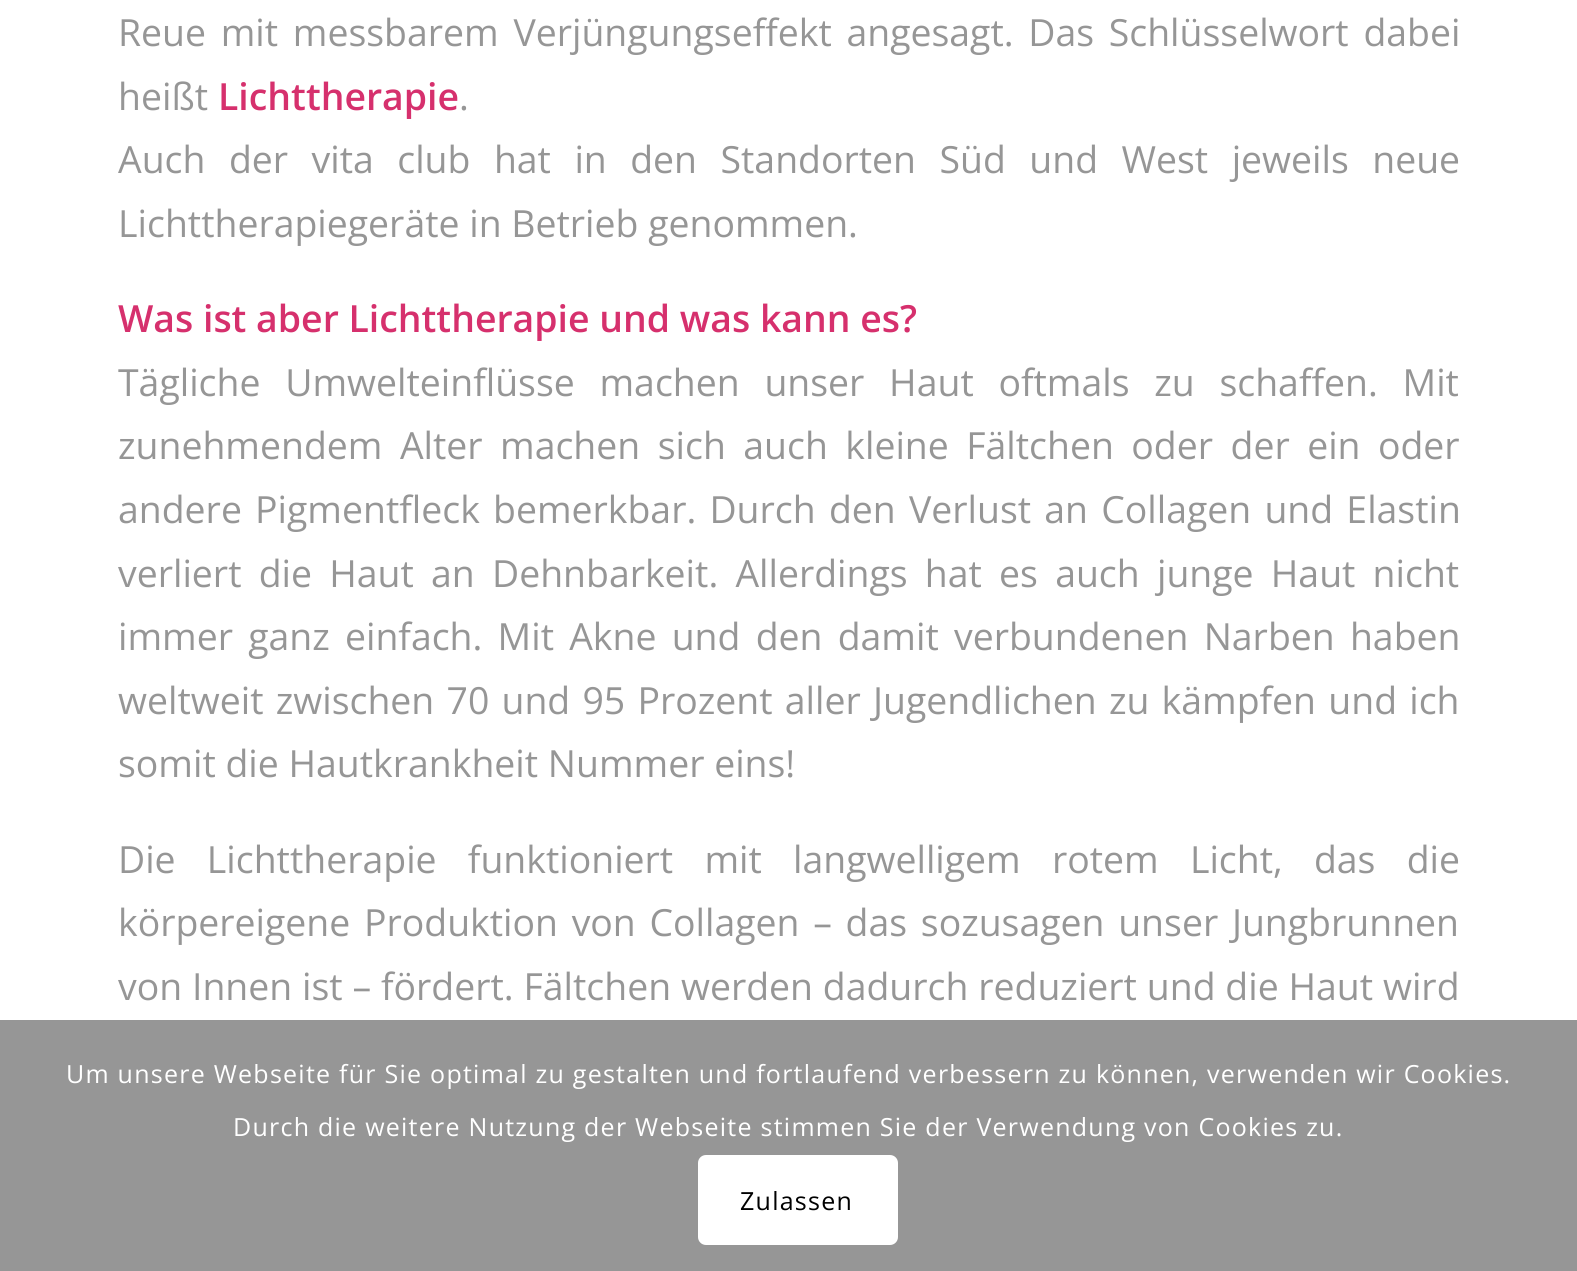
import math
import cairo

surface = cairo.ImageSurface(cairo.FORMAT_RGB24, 1577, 1271)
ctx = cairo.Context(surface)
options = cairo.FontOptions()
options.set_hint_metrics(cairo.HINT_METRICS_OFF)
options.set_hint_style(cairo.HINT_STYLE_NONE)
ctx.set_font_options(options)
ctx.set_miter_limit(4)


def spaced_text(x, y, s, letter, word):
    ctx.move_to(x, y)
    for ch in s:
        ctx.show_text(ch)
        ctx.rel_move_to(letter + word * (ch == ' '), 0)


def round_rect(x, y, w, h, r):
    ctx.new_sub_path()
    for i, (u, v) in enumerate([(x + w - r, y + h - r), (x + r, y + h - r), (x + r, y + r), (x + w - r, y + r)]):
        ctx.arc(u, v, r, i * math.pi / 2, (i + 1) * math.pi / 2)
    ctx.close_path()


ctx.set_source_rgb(1, 1, 1)
ctx.paint()
ctx.select_font_face("Open Sans")
ctx.set_font_size(37.4)
ctx.set_source_rgb(0.588, 0.588, 0.588)
spaced_text(118, 46, "Reue mit messbarem Verjüngungseffekt angesagt. Das Schlüsselwort dabei", 0, 5)
ctx.move_to(118, 110)
ctx.show_text("heißt")
ctx.select_font_face("Open Sans SemiBold")
ctx.set_source_rgb(0.839, 0.188, 0.427)
ctx.move_to(218, 110)
ctx.show_text("Lichttherapie")
ctx.select_font_face("Open Sans")
ctx.set_source_rgb(0.588, 0.588, 0.588)
ctx.move_to(459, 110)
ctx.show_text(".")
spaced_text(118, 173, "Auch der vita club hat in den Standorten Süd und West jeweils neue", 0, 13.75)
ctx.move_to(118, 237)
ctx.show_text("Lichttherapiegeräte in Betrieb genommen.")
ctx.select_font_face("Open Sans SemiBold")
ctx.set_source_rgb(0.839, 0.188, 0.427)
ctx.move_to(118, 332)
ctx.show_text("Was ist aber Lichttherapie und was kann es?")
ctx.select_font_face("Open Sans")
ctx.set_source_rgb(0.588, 0.588, 0.588)
spaced_text(118, 396, "Tägliche Umwelteinflüsse machen unser Haut oftmals zu schaffen. Mit", 0, 15)
spaced_text(118, 459, "zunehmendem Alter machen sich auch kleine Fältchen oder der ein oder", 0, 7.75)
spaced_text(118, 523, "andere Pigmentfleck bemerkbar. Durch den Verlust an Collagen und Elastin", 0, 3.5)
spaced_text(118, 587, "verliert die Haut an Dehnbarkeit. Allerdings hat es auch junge Haut nicht", 0, 7.5)
spaced_text(118, 650, "immer ganz einfach. Mit Akne und den damit verbundenen Narben haben", 0, 5.5)
spaced_text(118, 714, "weltweit zwischen 70 und 95 Prozent aller Jugendlichen zu kämpfen und ich", 0, 2.5)
ctx.move_to(118, 777)
ctx.show_text("somit die Hautkrankheit Nummer eins!")
spaced_text(118, 873, "Die Lichttherapie funktioniert mit langwelligem rotem Licht, das die", 0, 21.5)
spaced_text(118, 936, "körpereigene Produktion von Collagen – das sozusagen unser Jungbrunnen", 0, 4)
spaced_text(118, 1000, "von Innen ist – fördert. Fältchen werden dadurch reduziert und die Haut wird", 0, 0.1)
ctx.rectangle(0, 1020, 1577, 251)
ctx.fill()
ctx.set_font_size(25)
ctx.set_source_rgb(1, 1, 1)
spaced_text(66, 1083, "Um unsere Webseite für Sie optimal zu gestalten und fortlaufend verbessern zu können, verwenden wir Cookies.", 1.25, 0)
spaced_text(233, 1136, "Durch die weitere Nutzung der Webseite stimmen Sie der Verwendung von Cookies zu.", 1.25, 0)
round_rect(698, 1155, 200, 90, 8)
ctx.fill()
ctx.set_source_rgb(0, 0, 0)
spaced_text(740, 1210, "Zulassen", 1.25, 0)
surface.write_to_png("page.png")
